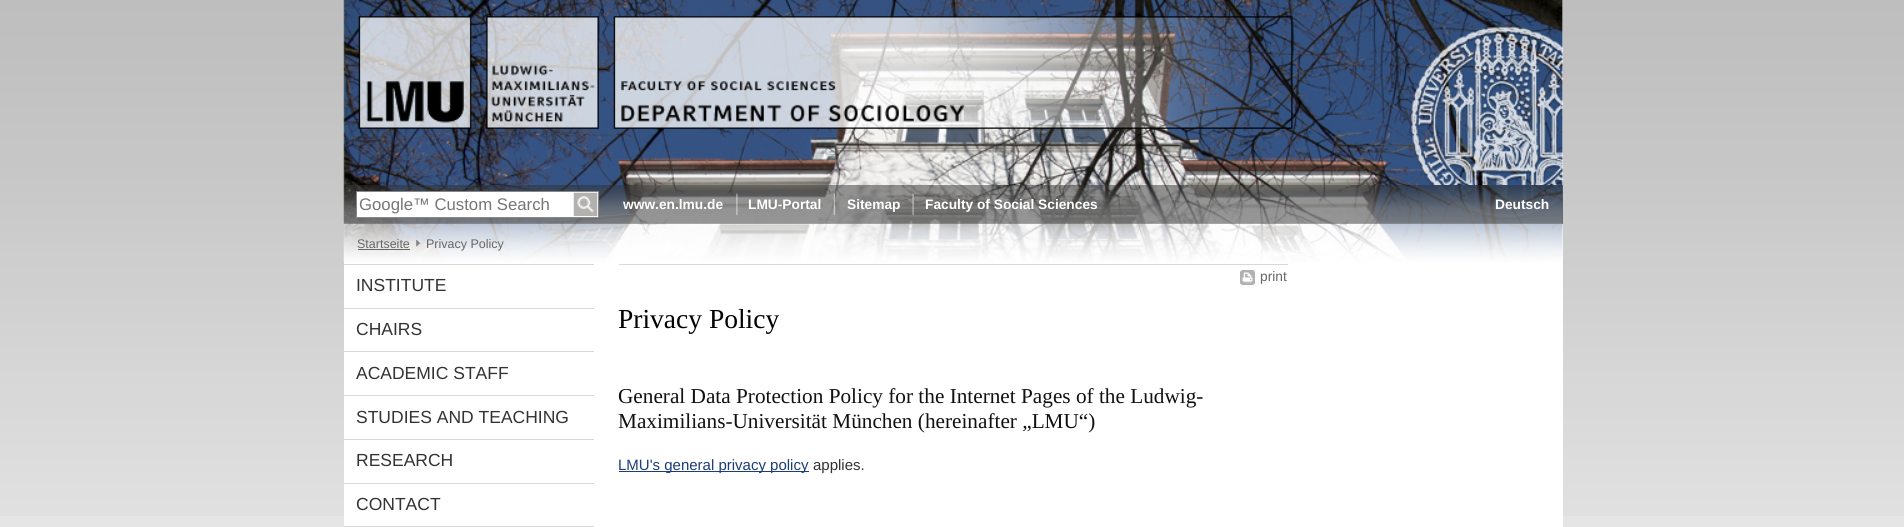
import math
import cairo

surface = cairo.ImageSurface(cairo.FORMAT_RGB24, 1904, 527)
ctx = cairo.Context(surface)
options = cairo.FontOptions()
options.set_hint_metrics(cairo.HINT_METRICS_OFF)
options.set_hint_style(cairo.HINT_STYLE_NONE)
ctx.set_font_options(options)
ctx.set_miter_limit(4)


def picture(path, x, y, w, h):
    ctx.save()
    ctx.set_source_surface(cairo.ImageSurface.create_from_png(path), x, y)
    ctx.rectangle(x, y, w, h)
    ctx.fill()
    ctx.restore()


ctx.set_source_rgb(0.898, 0.898, 0.898)
ctx.paint()
picture("img1.png", 0, 0, 1904, 516)
ctx.set_source_rgb(1, 1, 1)
ctx.rectangle(344, 0, 1219, 527)
ctx.fill()
picture("img2.png", 343, 0, 1220, 185)
ctx.set_source_rgb(0.4, 0.4, 0.4)
ctx.rectangle(344, 185, 1219, 39)
ctx.fill()
picture("img3.png", 343, 185, 1220, 39)
ctx.set_source_rgb(1, 1, 1)
ctx.rectangle(356.5, 191.5, 242, 26)
ctx.fill_preserve()
ctx.set_source_rgb(0.533, 0.533, 0.533)
ctx.set_line_width(1)
ctx.stroke()
ctx.select_font_face("Liberation Sans")
ctx.set_font_size(16.75)
ctx.set_source_rgb(0.459, 0.459, 0.459)
ctx.move_to(359, 210)
ctx.show_text("Google™ Custom Search")
picture("img4.png", 573, 192, 25, 25)
ctx.select_font_face("Liberation Sans", cairo.FONT_SLANT_NORMAL, cairo.FONT_WEIGHT_BOLD)
ctx.set_font_size(13.75)
ctx.set_source_rgb(1, 1, 1)
ctx.move_to(623, 209)
ctx.show_text("www.en.lmu.de")
picture("img5.png", 736, 193, 2, 23)
ctx.move_to(748, 209)
ctx.show_text("LMU-Portal")
picture("img6.png", 833, 193, 2, 23)
ctx.move_to(847, 209)
ctx.show_text("Sitemap")
picture("img7.png", 912, 193, 2, 23)
ctx.move_to(925, 209)
ctx.show_text("Faculty of Social Sciences")
ctx.move_to(1495, 209)
ctx.show_text("Deutsch")
picture("img8.png", 343, 223, 1220, 40)
ctx.select_font_face("Liberation Sans")
ctx.set_font_size(12.5)
ctx.set_source_rgb(0.4, 0.4, 0.4)
ctx.move_to(357, 248)
ctx.show_text("Startseite")
ctx.rectangle(358, 249, 52, 1)
ctx.fill()
picture("img9.png", 416, 240, 5, 7)
ctx.move_to(426, 248)
ctx.show_text("Privacy Policy")
ctx.set_source_rgb(0.847, 0.847, 0.847)
ctx.rectangle(344, 264, 250, 1)
ctx.fill()
ctx.rectangle(344, 308, 250, 1)
ctx.fill()
ctx.set_font_size(17.5)
ctx.set_source_rgb(0.2, 0.2, 0.2)
ctx.move_to(356, 291)
ctx.show_text("INSTITUTE")
ctx.set_source_rgb(0.847, 0.847, 0.847)
ctx.rectangle(344, 351, 250, 1)
ctx.fill()
ctx.set_source_rgb(0.2, 0.2, 0.2)
ctx.move_to(356, 335)
ctx.show_text("CHAIRS")
ctx.set_source_rgb(0.847, 0.847, 0.847)
ctx.rectangle(344, 395, 250, 1)
ctx.fill()
ctx.set_source_rgb(0.2, 0.2, 0.2)
ctx.move_to(356, 379)
ctx.show_text("ACADEMIC STAFF")
ctx.set_source_rgb(0.847, 0.847, 0.847)
ctx.rectangle(344, 439, 250, 1)
ctx.fill()
ctx.set_source_rgb(0.2, 0.2, 0.2)
ctx.move_to(356, 423)
ctx.show_text("STUDIES AND TEACHING")
ctx.set_source_rgb(0.847, 0.847, 0.847)
ctx.rectangle(344, 483, 250, 1)
ctx.fill()
ctx.set_source_rgb(0.2, 0.2, 0.2)
ctx.move_to(356, 466)
ctx.show_text("RESEARCH")
ctx.set_source_rgb(0.847, 0.847, 0.847)
ctx.rectangle(344, 526, 250, 1)
ctx.fill()
ctx.set_source_rgb(0.2, 0.2, 0.2)
ctx.move_to(356, 510)
ctx.show_text("CONTACT")
ctx.set_source_rgb(0.847, 0.847, 0.847)
ctx.rectangle(619, 264, 669, 1)
ctx.fill()
picture("img10.png", 1240, 270, 15, 15)
ctx.set_font_size(13.75)
ctx.set_source_rgb(0.4, 0.4, 0.4)
ctx.move_to(1260, 281)
ctx.show_text("print")
ctx.select_font_face("Liberation Serif")
ctx.set_font_size(27.5)
ctx.set_source_rgb(0, 0, 0)
ctx.move_to(618, 328)
ctx.show_text("Privacy Policy")
ctx.set_font_size(21.25)
ctx.set_source_rgb(0.067, 0.067, 0.067)
ctx.move_to(618, 403)
ctx.show_text("General Data Protection Policy for the Internet Pages of the Ludwig-")
ctx.move_to(618, 428)
ctx.show_text("Maximilians-Universität München (hereinafter „LMU“)")
ctx.set_source_rgb(0.11, 0.235, 0.478)
ctx.rectangle(619, 471, 190, 1)
ctx.fill()
ctx.select_font_face("Liberation Sans")
ctx.set_font_size(15)
ctx.move_to(618, 470)
ctx.show_text("LMU's general privacy policy")
ctx.set_source_rgb(0.2, 0.2, 0.2)
ctx.move_to(813, 470)
ctx.show_text("applies.")
surface.write_to_png("page.png")
